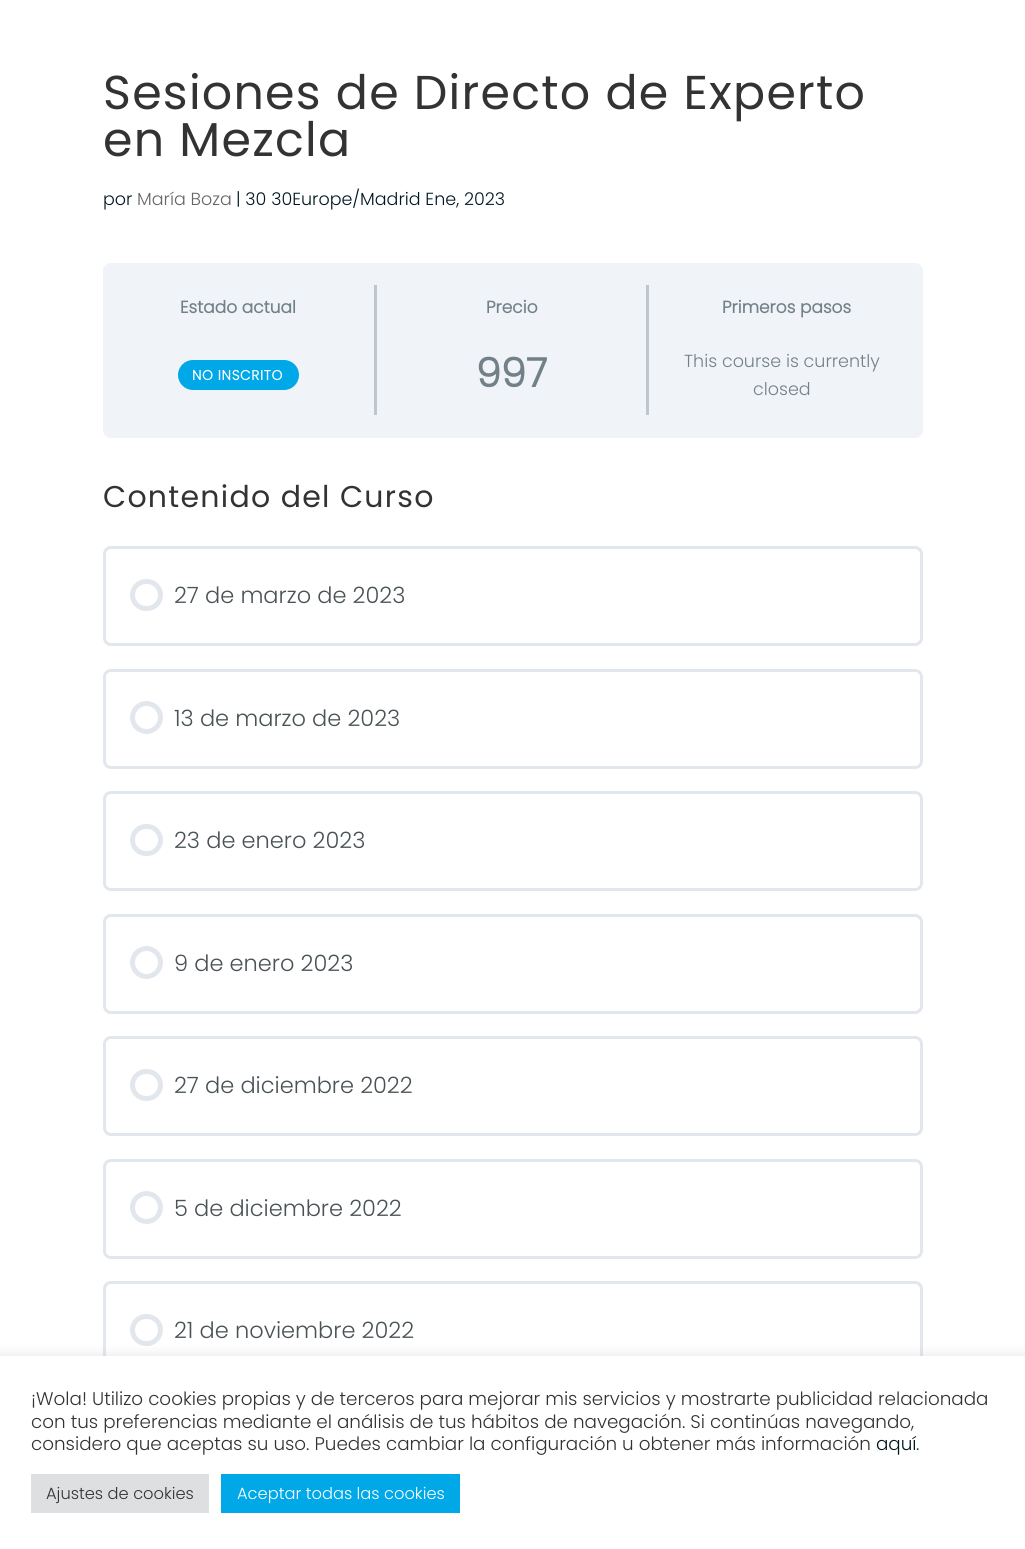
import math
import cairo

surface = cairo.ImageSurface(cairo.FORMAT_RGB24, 1025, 1549)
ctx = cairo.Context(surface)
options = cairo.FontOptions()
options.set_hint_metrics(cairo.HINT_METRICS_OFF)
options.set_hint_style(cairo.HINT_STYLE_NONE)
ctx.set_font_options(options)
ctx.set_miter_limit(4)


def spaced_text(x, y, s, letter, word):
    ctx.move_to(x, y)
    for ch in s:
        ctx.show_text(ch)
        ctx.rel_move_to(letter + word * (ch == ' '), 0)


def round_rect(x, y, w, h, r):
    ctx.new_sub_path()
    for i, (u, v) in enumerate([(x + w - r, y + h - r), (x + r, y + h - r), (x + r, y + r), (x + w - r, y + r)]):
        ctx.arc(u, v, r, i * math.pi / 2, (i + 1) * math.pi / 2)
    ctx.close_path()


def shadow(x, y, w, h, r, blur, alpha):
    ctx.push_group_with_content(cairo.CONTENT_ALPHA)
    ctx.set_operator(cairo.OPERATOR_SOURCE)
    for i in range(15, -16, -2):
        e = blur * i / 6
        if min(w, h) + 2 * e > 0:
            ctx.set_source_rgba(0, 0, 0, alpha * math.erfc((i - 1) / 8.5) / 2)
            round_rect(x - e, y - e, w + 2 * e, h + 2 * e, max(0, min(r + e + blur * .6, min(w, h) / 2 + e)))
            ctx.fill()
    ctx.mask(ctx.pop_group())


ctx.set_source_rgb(1, 1, 1)
ctx.paint()
ctx.select_font_face("Poppins")
ctx.set_font_size(47.5)
ctx.set_source_rgb(0.2, 0.2, 0.2)
spaced_text(103, 109, "Sesiones de Directo de Experto", 1.25, 0)
spaced_text(103, 156, "en Mezcla", 1.25, 0)
ctx.select_font_face("Poppins Light")
ctx.set_font_size(17.5)
ctx.set_source_rgb(0, 0.09, 0.122)
ctx.move_to(103, 205)
ctx.show_text("por")
ctx.set_source_rgb(0.4, 0.4, 0.4)
ctx.move_to(137, 205)
ctx.show_text("María Boza")
ctx.set_source_rgb(0, 0.09, 0.122)
ctx.move_to(236, 205)
ctx.show_text("| 30 30Europe/Madrid Ene, 2023")
ctx.set_source_rgb(0.941, 0.953, 0.965)
round_rect(103, 263, 820, 175, 8)
ctx.fill()
ctx.set_source_rgb(0.745, 0.773, 0.796)
ctx.rectangle(374, 285, 3, 130)
ctx.fill()
ctx.select_font_face("Poppins", cairo.FONT_SLANT_NORMAL, cairo.FONT_WEIGHT_BOLD)
ctx.set_font_size(17)
ctx.set_source_rgb(0.447, 0.506, 0.533)
ctx.move_to(180, 313)
ctx.show_text("Estado actual")
ctx.set_source_rgb(0, 0.659, 0.91)
round_rect(178, 360, 121, 30, 15)
ctx.fill()
ctx.set_font_size(13.75)
ctx.set_source_rgb(1, 1, 1)
spaced_text(192, 380, "NO INSCRITO", 0.6, 0)
ctx.set_source_rgb(0.745, 0.773, 0.796)
ctx.rectangle(646, 285, 3, 130)
ctx.fill()
ctx.set_font_size(17)
ctx.set_source_rgb(0.447, 0.506, 0.533)
ctx.move_to(486, 313)
ctx.show_text("Precio")
ctx.set_font_size(40)
ctx.move_to(476, 387)
ctx.show_text("997")
ctx.set_font_size(17)
ctx.move_to(722, 313)
ctx.show_text("Primeros pasos")
ctx.select_font_face("Poppins Light")
ctx.set_font_size(17.5)
ctx.move_to(684, 367)
ctx.show_text("This course is currently")
ctx.move_to(753, 395)
ctx.show_text("closed")
ctx.select_font_face("Poppins")
ctx.set_font_size(30)
ctx.set_source_rgb(0.2, 0.2, 0.2)
spaced_text(103, 507, "Contenido del Curso", 1.25, 0)
round_rect(104.5, 547.5, 817, 97, 6.5)
ctx.set_source_rgb(0.886, 0.906, 0.929)
ctx.set_line_width(3)
ctx.stroke()
round_rect(132.5, 581.5, 28, 27, 13.5)
ctx.set_line_width(5)
ctx.stroke()
ctx.select_font_face("Poppins Light")
ctx.set_font_size(22.5)
ctx.set_source_rgb(0.286, 0.322, 0.333)
ctx.move_to(174, 603)
ctx.show_text("27 de marzo de 2023")
round_rect(104.5, 670.5, 817, 97, 6.5)
ctx.set_source_rgb(0.886, 0.906, 0.929)
ctx.set_line_width(3)
ctx.stroke()
ctx.arc(146.5, 717.5, 14, 0, 2 * math.pi)
ctx.set_line_width(5)
ctx.stroke()
ctx.set_source_rgb(0.286, 0.322, 0.333)
ctx.move_to(174, 726)
ctx.show_text("13 de marzo de 2023")
round_rect(104.5, 792.5, 817, 97, 6.5)
ctx.set_source_rgb(0.886, 0.906, 0.929)
ctx.set_line_width(3)
ctx.stroke()
round_rect(132.5, 826.5, 28, 27, 13.5)
ctx.set_line_width(5)
ctx.stroke()
ctx.set_source_rgb(0.286, 0.322, 0.333)
ctx.move_to(174, 848)
ctx.show_text("23 de enero 2023")
round_rect(104.5, 915.5, 817, 97, 6.5)
ctx.set_source_rgb(0.886, 0.906, 0.929)
ctx.set_line_width(3)
ctx.stroke()
ctx.arc(146.5, 962.5, 14, 0, 2 * math.pi)
ctx.set_line_width(5)
ctx.stroke()
ctx.set_source_rgb(0.286, 0.322, 0.333)
ctx.move_to(174, 971)
ctx.show_text("9 de enero 2023")
round_rect(104.5, 1037.5, 817, 97, 6.5)
ctx.set_source_rgb(0.886, 0.906, 0.929)
ctx.set_line_width(3)
ctx.stroke()
round_rect(132.5, 1071.5, 28, 27, 13.5)
ctx.set_line_width(5)
ctx.stroke()
ctx.set_source_rgb(0.286, 0.322, 0.333)
ctx.move_to(174, 1093)
ctx.show_text("27 de diciembre 2022")
round_rect(104.5, 1160.5, 817, 97, 6.5)
ctx.set_source_rgb(0.886, 0.906, 0.929)
ctx.set_line_width(3)
ctx.stroke()
ctx.arc(146.5, 1207.5, 14, 0, 2 * math.pi)
ctx.set_line_width(5)
ctx.stroke()
ctx.set_source_rgb(0.286, 0.322, 0.333)
ctx.move_to(174, 1216)
ctx.show_text("5 de diciembre 2022")
round_rect(104.5, 1282.5, 817, 97, 6.5)
ctx.set_source_rgb(0.886, 0.906, 0.929)
ctx.set_line_width(3)
ctx.stroke()
round_rect(132.5, 1316.5, 28, 27, 13.5)
ctx.set_line_width(5)
ctx.stroke()
ctx.set_source_rgb(0.286, 0.322, 0.333)
ctx.move_to(174, 1338)
ctx.show_text("21 de noviembre 2022")
ctx.set_source_rgb(0.675, 0.671, 0.671)
shadow(0, 1355, 1025, 194, 0, 6, 0.3)
ctx.set_source_rgb(1, 1, 1)
ctx.rectangle(0, 1356, 1025, 193)
ctx.fill()
ctx.set_font_size(18.33)
ctx.set_source_rgb(0.2, 0.2, 0.2)
ctx.move_to(31, 1405)
ctx.show_text("¡Wola! Utilizo cookies propias y de terceros para mejorar mis servicios y mostrarte publicidad relacionada")
ctx.move_to(31, 1428)
ctx.show_text("con tus preferencias mediante el análisis de tus hábitos de navegación. Si continúas navegando,")
ctx.move_to(31, 1450)
ctx.show_text("considero que aceptas su uso. Puedes cambiar la configuración u obtener más información")
ctx.set_source_rgb(0, 0.09, 0.122)
ctx.move_to(876, 1450)
ctx.show_text("aquí")
ctx.set_source_rgb(0.2, 0.2, 0.2)
ctx.move_to(916, 1450)
ctx.show_text(".")
ctx.set_source_rgb(0.871, 0.875, 0.878)
ctx.rectangle(31, 1474, 178, 39)
ctx.fill()
ctx.set_font_size(16.25)
ctx.set_source_rgb(0.2, 0.2, 0.2)
ctx.move_to(46, 1499)
ctx.show_text("Ajustes de cookies")
ctx.set_source_rgb(0, 0.659, 0.91)
ctx.rectangle(221, 1474, 239, 39)
ctx.fill()
ctx.set_source_rgb(1, 1, 1)
ctx.move_to(237, 1499)
ctx.show_text("Aceptar todas las cookies")
surface.write_to_png("page.png")
